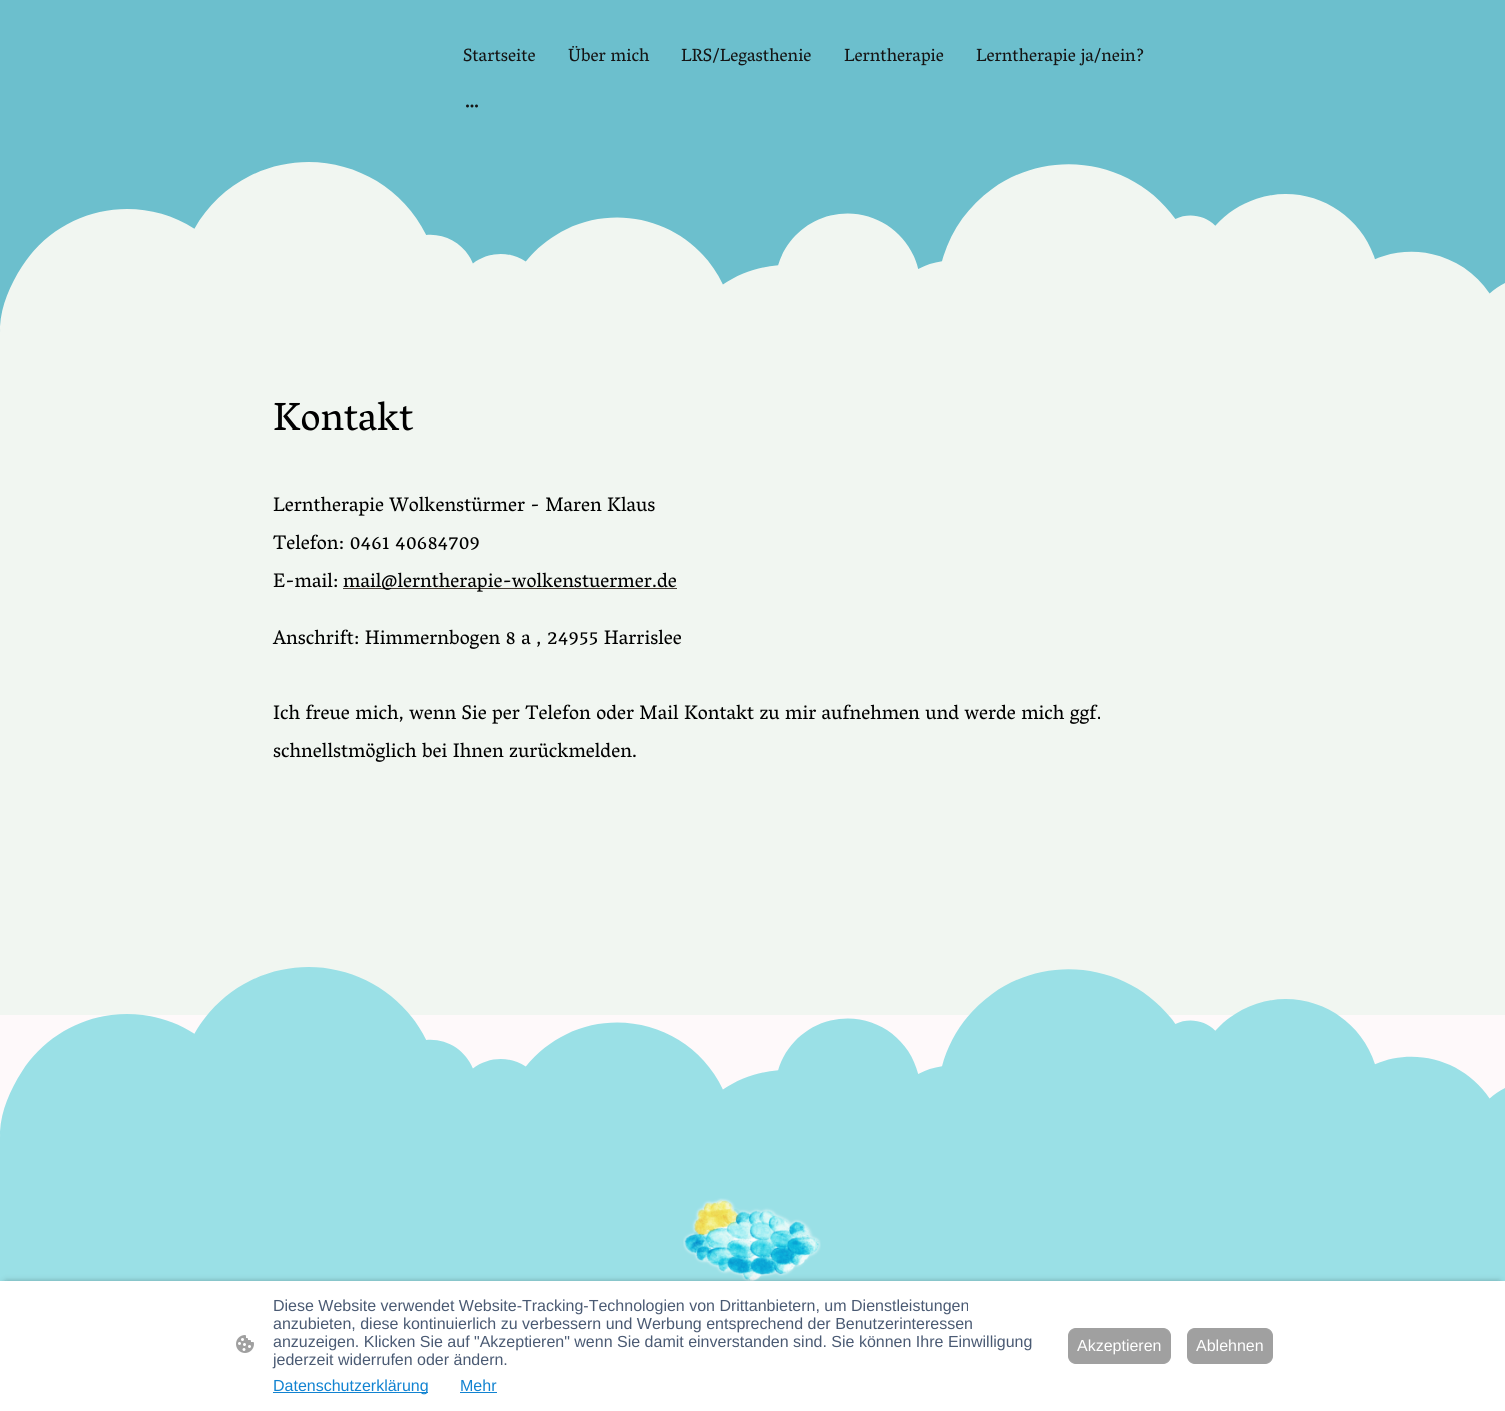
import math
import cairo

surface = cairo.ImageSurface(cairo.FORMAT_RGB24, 1505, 1411)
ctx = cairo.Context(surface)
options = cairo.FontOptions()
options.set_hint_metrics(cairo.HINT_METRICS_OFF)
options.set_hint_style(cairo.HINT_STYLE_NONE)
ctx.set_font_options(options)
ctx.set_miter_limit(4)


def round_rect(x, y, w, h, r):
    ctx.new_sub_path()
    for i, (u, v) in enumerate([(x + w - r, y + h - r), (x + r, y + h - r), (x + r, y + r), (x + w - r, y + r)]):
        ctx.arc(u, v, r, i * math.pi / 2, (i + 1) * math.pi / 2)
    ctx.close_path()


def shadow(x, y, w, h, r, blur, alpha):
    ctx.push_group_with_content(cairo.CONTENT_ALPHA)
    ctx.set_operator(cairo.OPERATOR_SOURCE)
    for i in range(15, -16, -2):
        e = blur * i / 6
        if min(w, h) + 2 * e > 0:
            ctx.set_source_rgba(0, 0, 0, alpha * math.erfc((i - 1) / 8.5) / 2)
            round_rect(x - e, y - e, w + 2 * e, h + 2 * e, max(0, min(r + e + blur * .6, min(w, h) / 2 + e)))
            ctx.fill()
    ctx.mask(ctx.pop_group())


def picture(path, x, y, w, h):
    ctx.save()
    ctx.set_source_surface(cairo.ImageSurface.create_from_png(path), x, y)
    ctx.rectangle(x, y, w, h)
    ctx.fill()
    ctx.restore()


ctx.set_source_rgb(0.996, 0.976, 0.98)
ctx.paint()
ctx.set_source_rgb(0.424, 0.749, 0.804)
ctx.rectangle(0, 0, 1505, 332)
ctx.fill()
ctx.select_font_face("Vesper Libre")
ctx.set_font_size(18)
ctx.set_source_rgb(0.082, 0.082, 0.082)
ctx.move_to(463, 61)
ctx.show_text("Startseite")
ctx.move_to(568, 61)
ctx.show_text("Über mich")
ctx.move_to(681, 61)
ctx.show_text("LRS/Legasthenie")
ctx.move_to(844, 61)
ctx.show_text("Lerntherapie")
ctx.move_to(976, 61)
ctx.show_text("Lerntherapie ja/nein?")
picture("img1.png", 466, 104, 12, 4)
picture("img2.png", 0, 162, 1505, 853)
ctx.set_font_size(40)
ctx.set_source_rgb(0, 0, 0)
ctx.move_to(273, 430)
ctx.show_text("Kontakt")
ctx.set_font_size(20)
ctx.move_to(273, 511)
ctx.show_text("Lerntherapie Wolkenstürmer - Maren Klaus")
ctx.move_to(273, 549)
ctx.show_text("Telefon: 0461 40684709")
ctx.move_to(273, 587)
ctx.show_text("E-mail:")
ctx.set_source_rgb(0.278, 0.243, 0.208)
ctx.rectangle(343, 588, 334, 1)
ctx.fill()
ctx.set_source_rgb(0, 0, 0)
ctx.move_to(343, 587)
ctx.show_text("mail@lerntherapie-wolkenstuermer.de")
ctx.move_to(273, 644)
ctx.show_text("Anschrift: Himmernbogen 8 a , 24955 Harrislee")
ctx.move_to(273, 719)
ctx.show_text("Ich freue mich, wenn Sie per Telefon oder Mail Kontakt zu mir aufnehmen und werde mich ggf.")
ctx.move_to(273, 757)
ctx.show_text("schnellstmöglich bei Ihnen zurückmelden.")
picture("img3.png", 0, 967, 1505, 314)
picture("img4.png", 683, 1198, 138, 83)
ctx.set_source_rgb(0, 0, 0)
shadow(6, 1284, 1493, 118, 0, 4, 0.63)
ctx.set_source_rgb(1, 1, 1)
ctx.rectangle(0, 1281, 1505, 130)
ctx.fill()
picture("img5.png", 236, 1335, 18, 18)
ctx.select_font_face("Liberation Sans")
ctx.set_font_size(16)
ctx.set_source_rgb(0.29, 0.353, 0.451)
ctx.move_to(273, 1311)
ctx.show_text("Diese Website verwendet Website-Tracking-Technologien von Drittanbietern, um Dienstleistungen")
ctx.move_to(273, 1329)
ctx.show_text("anzubieten, diese kontinuierlich zu verbessern und Werbung entsprechend der Benutzerinteressen")
ctx.move_to(273, 1347)
ctx.show_text("anzuzeigen. Klicken Sie auf \"Akzeptieren\" wenn Sie damit einverstanden sind. Sie können Ihre Einwilligung")
ctx.move_to(273, 1365)
ctx.show_text("jederzeit widerrufen oder ändern.")
ctx.set_source_rgb(0.067, 0.514, 0.82)
ctx.rectangle(273, 1392, 155, 1)
ctx.fill()
ctx.move_to(273, 1391)
ctx.show_text("Datenschutzerklärung")
ctx.move_to(460, 1391)
ctx.show_text("Mehr")
ctx.rectangle(460, 1392, 37, 1)
ctx.fill()
ctx.set_source_rgb(0.627, 0.627, 0.627)
round_rect(1068.5, 1328.5, 102, 35, 7.5)
ctx.fill_preserve()
ctx.set_line_width(1)
ctx.stroke()
ctx.set_source_rgb(1, 1, 1)
ctx.move_to(1077, 1351)
ctx.show_text("Akzeptieren")
ctx.set_source_rgb(0.627, 0.627, 0.627)
round_rect(1187.5, 1328.5, 85, 35, 7.5)
ctx.fill_preserve()
ctx.stroke()
ctx.set_source_rgb(1, 1, 1)
ctx.move_to(1196, 1351)
ctx.show_text("Ablehnen")
surface.write_to_png("page.png")
